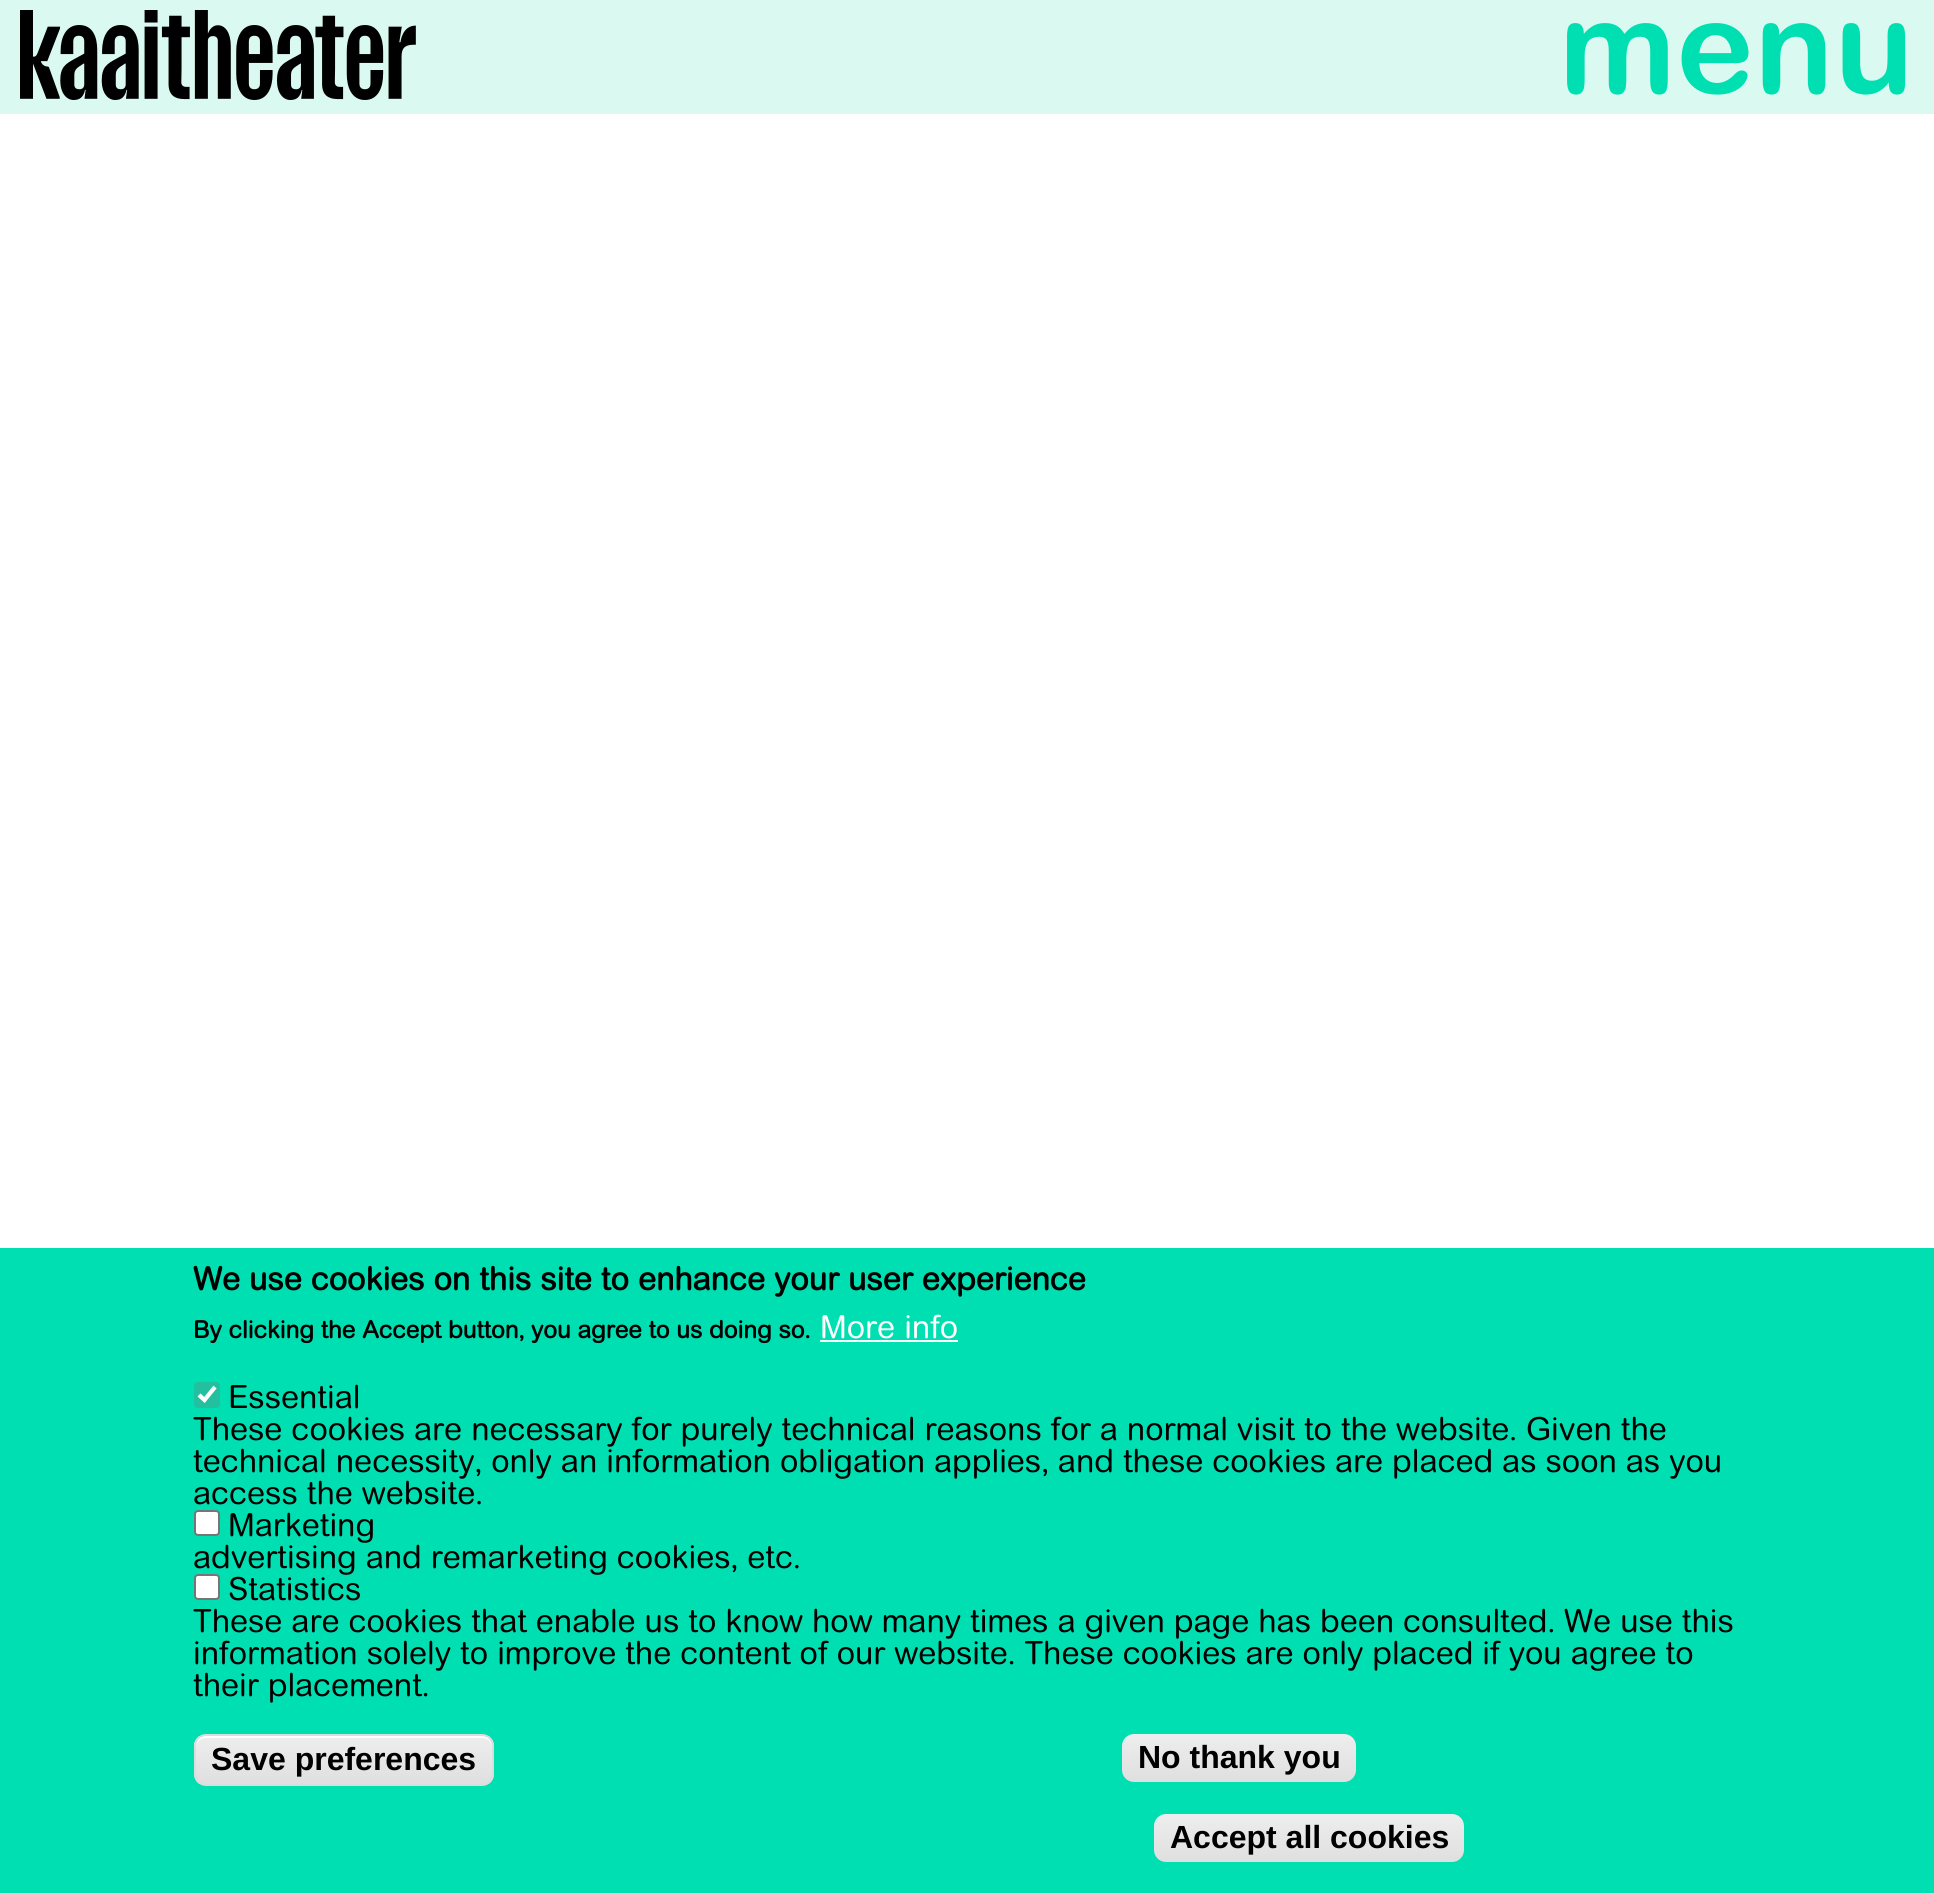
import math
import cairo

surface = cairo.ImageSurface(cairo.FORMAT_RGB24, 1934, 1893)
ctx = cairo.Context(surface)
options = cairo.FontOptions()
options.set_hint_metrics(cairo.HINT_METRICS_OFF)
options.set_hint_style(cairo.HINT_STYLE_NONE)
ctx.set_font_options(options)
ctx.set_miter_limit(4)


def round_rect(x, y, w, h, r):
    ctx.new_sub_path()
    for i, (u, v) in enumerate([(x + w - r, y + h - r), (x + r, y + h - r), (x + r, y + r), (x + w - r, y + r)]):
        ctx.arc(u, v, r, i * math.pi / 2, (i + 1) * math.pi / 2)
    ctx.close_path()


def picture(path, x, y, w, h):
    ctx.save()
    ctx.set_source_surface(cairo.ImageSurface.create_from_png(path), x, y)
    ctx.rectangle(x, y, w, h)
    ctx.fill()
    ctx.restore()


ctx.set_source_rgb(1, 1, 1)
ctx.paint()
ctx.set_source_rgb(0.855, 0.976, 0.941)
ctx.rectangle(0, 0, 1934, 114)
ctx.fill()
picture("img1.png", 20, 10, 396, 90)
ctx.select_font_face("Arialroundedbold", cairo.FONT_SLANT_NORMAL, cairo.FONT_WEIGHT_BOLD)
ctx.set_font_size(132)
ctx.set_source_rgb(0, 0.875, 0.694)
ctx.move_to(1559, 93)
ctx.show_text("menu")
ctx.rectangle(0, 1248, 1934, 645)
ctx.fill()
ctx.select_font_face("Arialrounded", cairo.FONT_SLANT_NORMAL, cairo.FONT_WEIGHT_BOLD)
ctx.set_font_size(32)
ctx.set_source_rgb(0, 0, 0)
ctx.move_to(193, 1290)
ctx.show_text("We use cookies on this site to enhance your user experience")
ctx.set_font_size(24)
ctx.move_to(193, 1338)
ctx.show_text("By clicking the Accept button, you agree to us doing so.")
ctx.select_font_face("Arialrounded")
ctx.set_font_size(32)
ctx.set_source_rgb(1, 1, 1)
ctx.move_to(820, 1338)
ctx.show_text("More info")
ctx.rectangle(820, 1340, 138, 2)
ctx.fill()
ctx.set_source_rgb(0.137, 0.753, 0.624)
round_rect(194, 1382, 26, 26, 4)
ctx.fill()
ctx.new_path()
ctx.move_to(199, 1395)
ctx.line_to(204.5, 1400)
ctx.line_to(215, 1387)
ctx.set_source_rgb(1, 1, 1)
ctx.set_line_width(4.2)
ctx.stroke()
ctx.set_source_rgb(0, 0, 0)
ctx.move_to(228, 1408)
ctx.show_text("Essential")
ctx.move_to(193, 1440)
ctx.show_text("These cookies are necessary for purely technical reasons for a normal visit to the website. Given the")
ctx.move_to(193, 1472)
ctx.show_text("technical necessity, only an information obligation applies, and these cookies are placed as soon as you")
ctx.move_to(193, 1504)
ctx.show_text("access the website.")
ctx.set_source_rgb(1, 1, 1)
round_rect(195, 1511, 24, 24, 3)
ctx.fill_preserve()
ctx.set_source_rgb(0.463, 0.463, 0.463)
ctx.set_line_width(2)
ctx.stroke()
ctx.set_source_rgb(0, 0, 0)
ctx.move_to(228, 1536)
ctx.show_text("Marketing")
ctx.move_to(193, 1568)
ctx.show_text("advertising and remarketing cookies, etc.")
ctx.set_source_rgb(1, 1, 1)
round_rect(195, 1575, 24, 24, 3)
ctx.fill_preserve()
ctx.set_source_rgb(0.463, 0.463, 0.463)
ctx.stroke()
ctx.set_source_rgb(0, 0, 0)
ctx.move_to(228, 1600)
ctx.show_text("Statistics")
ctx.move_to(193, 1632)
ctx.show_text("These are cookies that enable us to know how many times a given page has been consulted. We use this")
ctx.move_to(193, 1664)
ctx.show_text("information solely to improve the content of our website. These cookies are only placed if you agree to")
ctx.move_to(193, 1696)
ctx.show_text("their placement.")
ctx.save()
round_rect(194, 1734, 300, 52, 12)
ctx.clip()
gradient = cairo.LinearGradient(344, 1736, 344, 1784)
gradient.add_color_stop_rgba(0.05, 0.929, 0.929, 0.929, 1)
gradient.add_color_stop_rgba(1, 0.875, 0.875, 0.875, 1)
ctx.set_source(gradient)
ctx.rectangle(194, 1736, 300, 48)
ctx.fill()
ctx.restore()
ctx.set_source_rgb(1, 1, 1)
ctx.new_path()
ctx.move_to(206, 1738)
ctx.line_to(482, 1738)
ctx.curve_to(488, 1738, 492, 1742, 492, 1748)
ctx.line_to(492, 1746)
ctx.curve_to(492, 1740, 488, 1736, 482, 1736)
ctx.line_to(206, 1736)
ctx.curve_to(200, 1736, 196, 1740, 196, 1746)
ctx.line_to(196, 1748)
ctx.curve_to(196, 1742, 200, 1738, 206, 1738)
ctx.close_path()
ctx.fill()
round_rect(195, 1735, 298, 50, 11)
ctx.set_source_rgb(0.863, 0.863, 0.863)
ctx.stroke()
ctx.select_font_face("Liberation Sans", cairo.FONT_SLANT_NORMAL, cairo.FONT_WEIGHT_BOLD)
ctx.set_source_rgb(0, 0, 0)
ctx.move_to(211, 1770)
ctx.show_text("Save preferences")
gradient = cairo.LinearGradient(1239, 1734, 1239, 1782)
gradient.add_color_stop_rgba(0.05, 0.929, 0.929, 0.929, 1)
gradient.add_color_stop_rgba(1, 0.875, 0.875, 0.875, 1)
ctx.set_source(gradient)
round_rect(1122, 1734, 234, 48, 12)
ctx.fill()
ctx.set_source_rgb(0, 0, 0)
ctx.move_to(1138, 1768)
ctx.show_text("No thank you")
gradient = cairo.LinearGradient(1309, 1814, 1309, 1862)
gradient.add_color_stop_rgba(0.05, 0.929, 0.929, 0.929, 1)
gradient.add_color_stop_rgba(1, 0.875, 0.875, 0.875, 1)
ctx.set_source(gradient)
round_rect(1154, 1814, 310, 48, 12)
ctx.fill()
ctx.set_source_rgb(0, 0, 0)
ctx.move_to(1170, 1848)
ctx.show_text("Accept all cookies")
surface.write_to_png("page.png")
